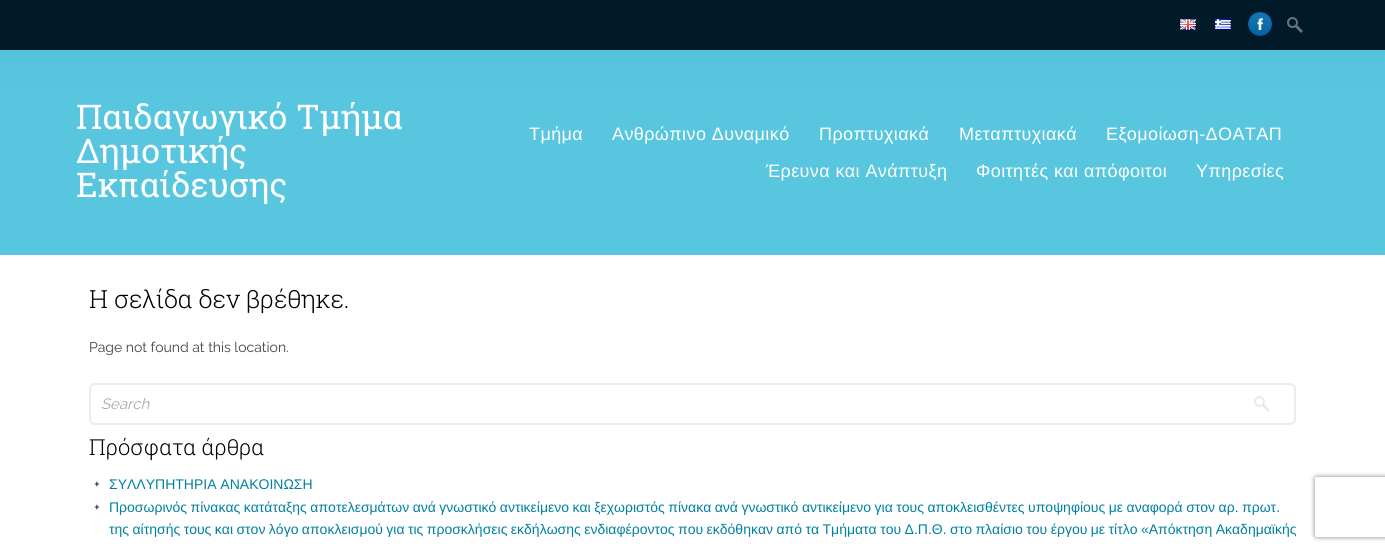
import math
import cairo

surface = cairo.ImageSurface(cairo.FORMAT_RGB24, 1385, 551)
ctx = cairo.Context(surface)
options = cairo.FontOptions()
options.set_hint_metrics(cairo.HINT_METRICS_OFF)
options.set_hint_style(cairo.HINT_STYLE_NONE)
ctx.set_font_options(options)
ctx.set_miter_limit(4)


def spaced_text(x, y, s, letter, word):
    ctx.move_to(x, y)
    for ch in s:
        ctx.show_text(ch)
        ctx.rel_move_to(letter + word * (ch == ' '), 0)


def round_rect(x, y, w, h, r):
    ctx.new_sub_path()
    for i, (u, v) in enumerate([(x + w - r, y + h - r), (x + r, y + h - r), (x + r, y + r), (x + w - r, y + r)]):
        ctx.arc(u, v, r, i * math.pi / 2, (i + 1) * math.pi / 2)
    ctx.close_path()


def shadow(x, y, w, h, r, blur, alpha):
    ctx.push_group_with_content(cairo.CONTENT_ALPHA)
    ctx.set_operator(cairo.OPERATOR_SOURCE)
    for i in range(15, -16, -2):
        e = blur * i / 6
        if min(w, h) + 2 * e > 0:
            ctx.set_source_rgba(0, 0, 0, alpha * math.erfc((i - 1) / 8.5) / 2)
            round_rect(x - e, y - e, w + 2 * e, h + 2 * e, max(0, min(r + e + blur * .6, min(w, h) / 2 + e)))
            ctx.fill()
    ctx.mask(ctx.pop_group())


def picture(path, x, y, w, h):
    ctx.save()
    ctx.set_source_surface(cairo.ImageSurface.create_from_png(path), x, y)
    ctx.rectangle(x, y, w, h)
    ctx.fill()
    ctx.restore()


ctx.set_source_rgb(1, 1, 1)
ctx.paint()
ctx.set_source_rgb(0.349, 0.776, 0.875)
ctx.rectangle(0, 50, 1385, 205)
ctx.fill()
ctx.set_source_rgb(0, 0.427, 0.525)
shadow(0, 0, 1385, 50, 0, 25, 0.1)
ctx.set_source_rgb(0.004, 0.102, 0.161)
ctx.rectangle(0, 0, 1385, 50)
ctx.fill()
picture("img1.png", 1180, 19, 16, 11)
picture("img2.png", 1215, 19, 16, 11)
picture("img3.png", 1248, 12, 24, 24)
picture("img4.png", 1287, 17, 16, 16)
ctx.select_font_face("Roboto Slab")
ctx.set_font_size(34)
ctx.set_source_rgb(1, 1, 1)
ctx.move_to(76, 129)
ctx.show_text("Παιδαγωγικό Τμήμα")
ctx.move_to(76, 163)
ctx.show_text("Δημοτικής")
ctx.move_to(76, 197)
ctx.show_text("Εκπαίδευσης")
ctx.select_font_face("Liberation Sans")
ctx.set_font_size(18)
spaced_text(529, 140, "Τμήμα", 0.4, 0)
spaced_text(612, 140, "Ανθρώπινο Δυναμικό", 0.4, 0)
spaced_text(819, 140, "Προπτυχιακά", 0.4, 0)
spaced_text(959, 140, "Μεταπτυχιακά", 0.4, 0)
spaced_text(1106, 140, "Εξομοίωση-ΔΟΑΤΑΠ", 0.4, 0)
spaced_text(766, 177, "Έρευνα και Ανάπτυξη", 0.4, 0)
spaced_text(976, 177, "Φοιτητές και απόφοιτοι", 0.4, 0)
spaced_text(1196, 177, "Υπηρεσίες", 0.4, 0)
ctx.select_font_face("Roboto Slab Light")
ctx.set_font_size(25)
ctx.set_source_rgb(0, 0, 0)
ctx.move_to(89, 308)
ctx.show_text("Η σελίδα δεν βρέθηκε.")
ctx.select_font_face("Raleway")
ctx.set_font_size(14)
ctx.set_source_rgb(0.255, 0.263, 0.271)
ctx.move_to(89, 352)
ctx.show_text("Page not found at this location.")
round_rect(90, 384, 1205, 40, 5)
ctx.set_source_rgb(0.922, 0.922, 0.922)
ctx.stroke()
picture("img5.png", 1254, 396, 16, 16)
ctx.select_font_face("Raleway", cairo.FONT_SLANT_ITALIC)
ctx.set_font_size(15)
ctx.set_source_rgb(0.667, 0.667, 0.667)
ctx.move_to(101, 409)
ctx.show_text("Search")
ctx.select_font_face("Roboto Slab Light")
ctx.set_font_size(22)
ctx.set_source_rgb(0, 0, 0)
ctx.move_to(89, 455)
ctx.show_text("Πρόσφατα άρθρα")
ctx.select_font_face("Raleway")
ctx.set_font_size(14)
ctx.move_to(94, 489)
ctx.show_text("+")
ctx.select_font_face("Liberation Sans")
ctx.set_source_rgb(0, 0.502, 0.627)
ctx.move_to(109, 489)
ctx.show_text("ΣΥΛΛΥΠΗΤΗΡΙΑ ΑΝΑΚΟΙΝΩΣΗ")
ctx.select_font_face("Raleway")
ctx.set_source_rgb(0, 0, 0)
ctx.move_to(94, 512)
ctx.show_text("+")
ctx.select_font_face("Liberation Sans")
ctx.set_source_rgb(0, 0.502, 0.627)
spaced_text(109, 512, "Προσωρινός πίνακας κατάταξης αποτελεσμάτων ανά γνωστικό αντικείμενο και ξεχωριστός πίνακα ανά γνωστικό αντικείμενο για τους αποκλεισθέντες υποψηφίους με αναφορά στον αρ. πρωτ.", 0, -0.4)
spaced_text(109, 534, "της αίτησής τους και στον λόγο αποκλεισμού για τις προσκλήσεις εκδήλωσης ενδιαφέροντος που εκδόθηκαν από τα Τμήματα του Δ.Π.Θ. στο πλαίσιο του έργου με τίτλο «Απόκτηση Ακαδημαϊκής", 0, -0.45)
ctx.save()
ctx.set_fill_rule(cairo.FILL_RULE_EVEN_ODD)
ctx.new_path()
ctx.move_to(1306, 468)
ctx.line_to(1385, 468)
ctx.line_to(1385, 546)
ctx.line_to(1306, 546)
ctx.close_path()
ctx.move_to(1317, 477)
ctx.line_to(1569, 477)
ctx.curve_to(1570, 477, 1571, 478, 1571, 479)
ctx.line_to(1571, 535)
ctx.curve_to(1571, 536, 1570, 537, 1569, 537)
ctx.line_to(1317, 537)
ctx.curve_to(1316, 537, 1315, 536, 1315, 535)
ctx.line_to(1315, 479)
ctx.curve_to(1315, 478, 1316, 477, 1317, 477)
ctx.close_path()
ctx.clip()
ctx.set_source_rgb(0.502, 0.502, 0.502)
shadow(1315, 477, 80, 60, 2, 2.5, 1)
ctx.restore()
surface.write_to_png("page.png")
